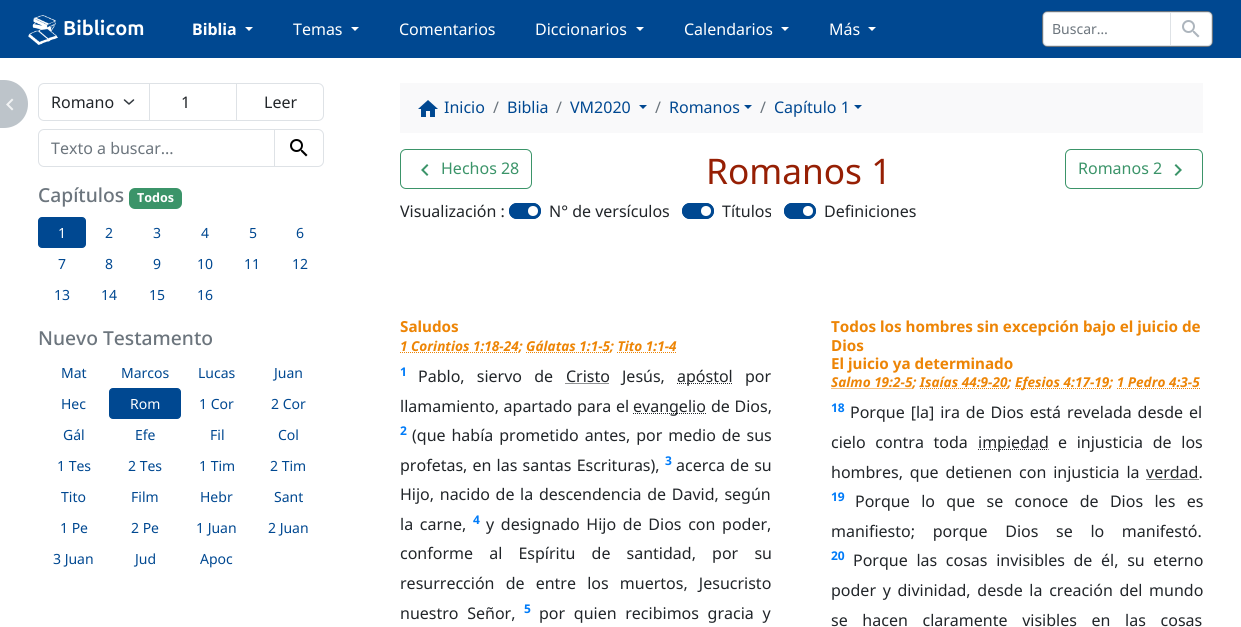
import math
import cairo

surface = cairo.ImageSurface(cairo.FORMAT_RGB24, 1241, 627)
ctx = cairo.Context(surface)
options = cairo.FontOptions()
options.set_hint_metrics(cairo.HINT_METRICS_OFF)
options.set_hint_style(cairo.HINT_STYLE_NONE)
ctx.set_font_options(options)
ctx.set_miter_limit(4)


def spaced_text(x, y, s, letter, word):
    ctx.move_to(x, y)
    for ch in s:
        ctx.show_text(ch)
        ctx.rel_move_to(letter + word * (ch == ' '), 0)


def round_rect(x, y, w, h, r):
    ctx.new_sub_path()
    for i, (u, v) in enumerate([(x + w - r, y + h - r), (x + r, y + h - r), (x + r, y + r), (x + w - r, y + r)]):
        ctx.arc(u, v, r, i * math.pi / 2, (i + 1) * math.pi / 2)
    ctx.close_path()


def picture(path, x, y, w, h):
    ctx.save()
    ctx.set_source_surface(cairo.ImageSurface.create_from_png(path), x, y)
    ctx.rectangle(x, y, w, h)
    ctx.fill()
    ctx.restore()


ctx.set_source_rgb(1, 1, 1)
ctx.paint()
ctx.set_source_rgb(0, 0.282, 0.569)
ctx.rectangle(0, 0, 1241, 58)
ctx.fill()
picture("img1.png", 28, 15, 30, 30)
ctx.select_font_face("Ubuntu", cairo.FONT_SLANT_NORMAL, cairo.FONT_WEIGHT_BOLD)
ctx.set_font_size(20)
ctx.set_source_rgb(1, 1, 1)
ctx.move_to(63, 35)
ctx.show_text("Biblicom")
ctx.select_font_face("Noto Sans", cairo.FONT_SLANT_NORMAL, cairo.FONT_WEIGHT_BOLD)
ctx.set_font_size(16)
ctx.move_to(192, 35)
ctx.show_text("Biblia")
ctx.new_path()
ctx.move_to(245, 27)
ctx.line_to(253, 27)
ctx.line_to(249, 31)
ctx.close_path()
ctx.fill()
ctx.select_font_face("Noto Sans")
ctx.move_to(293, 35)
ctx.show_text("Temas")
ctx.new_path()
ctx.move_to(351, 27)
ctx.line_to(359, 27)
ctx.line_to(355, 31)
ctx.close_path()
ctx.fill()
ctx.move_to(399, 35)
ctx.show_text("Comentarios")
ctx.move_to(535, 35)
ctx.show_text("Diccionarios")
ctx.new_path()
ctx.move_to(636, 27)
ctx.line_to(644, 27)
ctx.line_to(640, 31)
ctx.close_path()
ctx.fill()
ctx.move_to(684, 35)
ctx.show_text("Calendarios")
ctx.new_path()
ctx.move_to(781, 27)
ctx.line_to(789, 27)
ctx.line_to(785, 31)
ctx.close_path()
ctx.fill()
ctx.move_to(829, 35)
ctx.show_text("Más")
ctx.new_path()
ctx.move_to(868, 27)
ctx.line_to(876, 27)
ctx.line_to(872, 31)
ctx.close_path()
ctx.fill()
round_rect(1042.5, 11.5, 170, 35, 5.5)
ctx.set_source_rgb(0.424, 0.459, 0.49)
ctx.set_line_width(1)
ctx.stroke()
ctx.set_source_rgb(1, 1, 1)
ctx.new_path()
ctx.move_to(1047, 12.5)
ctx.line_to(1170.5, 12.5)
ctx.line_to(1170.5, 45.5)
ctx.line_to(1047, 45.5)
ctx.curve_to(1045, 45.5, 1043.5, 44, 1043.5, 42)
ctx.line_to(1043.5, 16)
ctx.curve_to(1043.5, 14, 1045, 12.5, 1047, 12.5)
ctx.close_path()
ctx.fill_preserve()
ctx.set_source_rgb(0.871, 0.886, 0.902)
ctx.stroke()
ctx.set_font_size(14)
ctx.set_source_rgb(0.424, 0.459, 0.49)
ctx.move_to(1052, 34)
ctx.show_text("Buscar…")
ctx.set_source_rgb(1, 1, 1)
ctx.new_path()
ctx.move_to(1170.5, 12.5)
ctx.line_to(1208, 12.5)
ctx.curve_to(1210, 12.5, 1211.5, 14, 1211.5, 16)
ctx.line_to(1211.5, 42)
ctx.curve_to(1211.5, 44, 1210, 45.5, 1208, 45.5)
ctx.line_to(1170.5, 45.5)
ctx.close_path()
ctx.fill_preserve()
ctx.set_source_rgb(0.871, 0.886, 0.902)
ctx.stroke()
picture("img2.png", 1182, 20, 18, 18)
ctx.set_source_rgb(0.741, 0.769, 0.792)
ctx.new_path()
ctx.move_to(-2, 80)
ctx.line_to(4, 80)
ctx.curve_to(17.5, 80, 28, 90.5, 28, 104)
ctx.curve_to(28, 117.5, 17.5, 128, 4, 128)
ctx.line_to(-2, 128)
ctx.close_path()
ctx.fill()
picture("img3.png", 6, 98, 8, 13)
ctx.new_path()
ctx.move_to(124.5, 100)
ctx.line_to(129, 104)
ctx.line_to(133.5, 100)
ctx.set_source_rgb(0.204, 0.227, 0.251)
ctx.set_line_width(1.5)
ctx.set_line_cap(cairo.LINE_CAP_ROUND)
ctx.set_line_join(cairo.LINE_JOIN_ROUND)
ctx.stroke()
ctx.new_path()
ctx.move_to(44, 83.5)
ctx.line_to(149.5, 83.5)
ctx.line_to(149.5, 120.5)
ctx.line_to(44, 120.5)
ctx.curve_to(41, 120.5, 38.5, 118, 38.5, 115)
ctx.line_to(38.5, 89)
ctx.curve_to(38.5, 86, 41, 83.5, 44, 83.5)
ctx.close_path()
ctx.set_source_rgb(0.871, 0.886, 0.902)
ctx.set_line_width(1)
ctx.set_line_cap(cairo.LINE_CAP_BUTT)
ctx.set_line_join(cairo.LINE_JOIN_MITER)
ctx.stroke()
ctx.set_font_size(16)
ctx.set_source_rgb(0.129, 0.145, 0.161)
ctx.move_to(51, 108)
ctx.show_text("Romano")
ctx.rectangle(149.5, 83.5, 87, 37)
ctx.set_source_rgb(0.871, 0.886, 0.902)
ctx.stroke()
ctx.set_source_rgb(0.129, 0.145, 0.161)
ctx.move_to(181, 108)
ctx.show_text("1")
ctx.new_path()
ctx.move_to(236.5, 83.5)
ctx.line_to(318, 83.5)
ctx.curve_to(321, 83.5, 323.5, 86, 323.5, 89)
ctx.line_to(323.5, 115)
ctx.curve_to(323.5, 118, 321, 120.5, 318, 120.5)
ctx.line_to(236.5, 120.5)
ctx.close_path()
ctx.set_source_rgb(0.871, 0.886, 0.902)
ctx.stroke()
ctx.set_source_rgb(0.129, 0.145, 0.161)
ctx.move_to(264, 108)
ctx.show_text("Leer")
ctx.new_path()
ctx.move_to(44, 129.5)
ctx.line_to(274.5, 129.5)
ctx.line_to(274.5, 166.5)
ctx.line_to(44, 166.5)
ctx.curve_to(41, 166.5, 38.5, 164, 38.5, 161)
ctx.line_to(38.5, 135)
ctx.curve_to(38.5, 132, 41, 129.5, 44, 129.5)
ctx.close_path()
ctx.set_source_rgb(0.871, 0.886, 0.902)
ctx.stroke()
ctx.set_source_rgb(0.424, 0.459, 0.49)
ctx.move_to(51, 154)
ctx.show_text("Texto a buscar...")
ctx.new_path()
ctx.move_to(274.5, 129.5)
ctx.line_to(318, 129.5)
ctx.curve_to(321, 129.5, 323.5, 132, 323.5, 135)
ctx.line_to(323.5, 161)
ctx.curve_to(323.5, 164, 321, 166.5, 318, 166.5)
ctx.line_to(274.5, 166.5)
ctx.close_path()
ctx.set_source_rgb(0.871, 0.886, 0.902)
ctx.stroke()
picture("img4.png", 290, 139, 18, 18)
ctx.select_font_face("Noto Sans Medium")
ctx.set_font_size(19.25)
ctx.set_source_rgb(0.424, 0.459, 0.49)
ctx.move_to(38, 202)
ctx.show_text("Capítulos")
ctx.set_source_rgb(0.231, 0.58, 0.412)
round_rect(129, 188, 53, 21, 6)
ctx.fill()
ctx.select_font_face("Noto Sans", cairo.FONT_SLANT_NORMAL, cairo.FONT_WEIGHT_BOLD)
ctx.set_font_size(12.5)
ctx.set_source_rgb(1, 1, 1)
ctx.move_to(137, 202)
ctx.show_text("Todos")
ctx.set_source_rgb(0, 0.282, 0.569)
round_rect(38.5, 217.5, 47, 30, 3.5)
ctx.fill_preserve()
ctx.stroke()
ctx.select_font_face("Noto Sans")
ctx.set_font_size(14)
ctx.set_source_rgb(1, 1, 1)
ctx.move_to(58, 238)
ctx.show_text("1")
ctx.set_source_rgb(0, 0.282, 0.569)
ctx.move_to(105, 238)
ctx.show_text("2")
ctx.move_to(153, 238)
ctx.show_text("3")
ctx.move_to(201, 238)
ctx.show_text("4")
ctx.move_to(249, 238)
ctx.show_text("5")
ctx.move_to(296, 238)
ctx.show_text("6")
ctx.move_to(58, 269)
ctx.show_text("7")
ctx.move_to(105, 269)
ctx.show_text("8")
ctx.move_to(153, 269)
ctx.show_text("9")
ctx.move_to(197, 269)
ctx.show_text("10")
ctx.move_to(244, 269)
ctx.show_text("11")
ctx.move_to(292, 269)
ctx.show_text("12")
ctx.move_to(54, 300)
ctx.show_text("13")
ctx.move_to(101, 300)
ctx.show_text("14")
ctx.move_to(149, 300)
ctx.show_text("15")
ctx.move_to(197, 300)
ctx.show_text("16")
ctx.select_font_face("Noto Sans Medium")
ctx.set_font_size(19.25)
ctx.set_source_rgb(0.424, 0.459, 0.49)
ctx.move_to(38, 345)
ctx.show_text("Nuevo Testamento")
ctx.select_font_face("Noto Sans")
ctx.set_font_size(14)
ctx.set_source_rgb(0, 0.282, 0.569)
ctx.move_to(61, 378)
ctx.show_text("Mat")
ctx.move_to(121, 378)
ctx.show_text("Marcos")
ctx.move_to(198, 378)
ctx.show_text("Lucas")
ctx.move_to(274, 378)
ctx.show_text("Juan")
ctx.move_to(61, 409)
ctx.show_text("Hec")
round_rect(109.5, 388.5, 71, 30, 3.5)
ctx.fill_preserve()
ctx.stroke()
ctx.set_source_rgb(1, 1, 1)
ctx.move_to(130, 409)
ctx.show_text("Rom")
ctx.set_source_rgb(0, 0.282, 0.569)
ctx.move_to(199, 409)
ctx.show_text("1 Cor")
ctx.move_to(271, 409)
ctx.show_text("2 Cor")
ctx.move_to(63, 440)
ctx.show_text("Gál")
ctx.move_to(135, 440)
ctx.show_text("Efe")
ctx.move_to(210, 440)
ctx.show_text("Fil")
ctx.move_to(278, 440)
ctx.show_text("Col")
ctx.move_to(57, 471)
ctx.show_text("1 Tes")
ctx.move_to(128, 471)
ctx.show_text("2 Tes")
ctx.move_to(199, 471)
ctx.show_text("1 Tim")
ctx.move_to(270, 471)
ctx.show_text("2 Tim")
ctx.move_to(61, 502)
ctx.show_text("Tito")
ctx.move_to(131, 502)
ctx.show_text("Film")
ctx.move_to(200, 502)
ctx.show_text("Hebr")
ctx.move_to(274, 502)
ctx.show_text("Sant")
ctx.move_to(60, 533)
ctx.show_text("1 Pe")
ctx.move_to(131, 533)
ctx.show_text("2 Pe")
ctx.move_to(196, 533)
ctx.show_text("1 Juan")
ctx.move_to(268, 533)
ctx.show_text("2 Juan")
ctx.move_to(53, 564)
ctx.show_text("3 Juan")
ctx.move_to(135, 564)
ctx.show_text("Jud")
ctx.move_to(200, 564)
ctx.show_text("Apoc")
ctx.set_source_rgb(0.973, 0.976, 0.98)
ctx.rectangle(400, 83, 803, 50)
ctx.fill()
picture("img5.png", 418, 100, 20, 17)
ctx.set_font_size(16)
ctx.set_source_rgb(0, 0.282, 0.569)
ctx.move_to(444, 113)
ctx.show_text("Inicio")
ctx.set_source_rgb(0.424, 0.459, 0.49)
ctx.move_to(493, 113)
ctx.show_text("/")
ctx.set_source_rgb(0, 0.282, 0.569)
ctx.move_to(507, 113)
ctx.show_text("Biblia")
ctx.set_source_rgb(0.424, 0.459, 0.49)
ctx.move_to(556, 113)
ctx.show_text("/")
ctx.set_source_rgb(0, 0.282, 0.569)
ctx.move_to(570, 113)
ctx.show_text("VM2020")
ctx.new_path()
ctx.move_to(639, 105)
ctx.line_to(647, 105)
ctx.line_to(643, 109)
ctx.close_path()
ctx.fill()
ctx.set_source_rgb(0.424, 0.459, 0.49)
ctx.move_to(655, 113)
ctx.show_text("/")
ctx.set_source_rgb(0, 0.282, 0.569)
ctx.move_to(669, 113)
ctx.show_text("Romanos")
ctx.new_path()
ctx.move_to(744, 105)
ctx.line_to(752, 105)
ctx.line_to(748, 109)
ctx.close_path()
ctx.fill()
ctx.set_source_rgb(0.424, 0.459, 0.49)
ctx.move_to(760, 113)
ctx.show_text("/")
ctx.set_source_rgb(0, 0.282, 0.569)
ctx.move_to(774, 113)
ctx.show_text("Capítulo 1")
ctx.new_path()
ctx.move_to(854, 105)
ctx.line_to(862, 105)
ctx.line_to(858, 109)
ctx.close_path()
ctx.fill()
round_rect(400.5, 149.5, 131, 39, 5.5)
ctx.set_source_rgb(0.231, 0.58, 0.412)
ctx.stroke()
picture("img6.png", 421, 164, 8, 12)
ctx.move_to(441, 174)
ctx.show_text("Hechos 28")
ctx.set_font_size(35.25)
ctx.set_source_rgb(0.588, 0.122, 0.016)
ctx.move_to(706, 184)
ctx.show_text("Romanos 1")
round_rect(1065.5, 149.5, 137, 39, 5.5)
ctx.set_source_rgb(0.231, 0.58, 0.412)
ctx.stroke()
ctx.set_font_size(16)
ctx.move_to(1078, 174)
ctx.show_text("Romanos 2")
picture("img7.png", 1174, 164, 8, 12)
ctx.set_source_rgb(0.129, 0.145, 0.161)
ctx.move_to(400, 217)
ctx.show_text("Visualización :")
ctx.set_source_rgb(0, 0.282, 0.569)
round_rect(509, 203, 32, 16, 8)
ctx.fill()
ctx.set_source_rgb(1, 1, 1)
ctx.arc(533, 211, 5, 0, 2 * math.pi)
ctx.fill()
round_rect(509.5, 203.5, 31, 15, 7.5)
ctx.set_source_rgb(0, 0.282, 0.569)
ctx.stroke()
ctx.set_source_rgb(0.129, 0.145, 0.161)
ctx.move_to(549, 217)
ctx.show_text("N° de versículos")
ctx.set_source_rgb(0, 0.282, 0.569)
round_rect(682, 203, 32, 16, 8)
ctx.fill()
ctx.set_source_rgb(1, 1, 1)
ctx.arc(706, 211, 5, 0, 2 * math.pi)
ctx.fill()
round_rect(682.5, 203.5, 31, 15, 7.5)
ctx.set_source_rgb(0, 0.282, 0.569)
ctx.stroke()
ctx.set_source_rgb(0.129, 0.145, 0.161)
ctx.move_to(722, 217)
ctx.show_text("Títulos")
ctx.set_source_rgb(0, 0.282, 0.569)
round_rect(784, 203, 32, 16, 8)
ctx.fill()
ctx.set_source_rgb(1, 1, 1)
ctx.arc(808, 211, 5, 0, 2 * math.pi)
ctx.fill()
round_rect(784.5, 203.5, 31, 15, 7.5)
ctx.set_source_rgb(0, 0.282, 0.569)
ctx.stroke()
ctx.set_source_rgb(0.129, 0.145, 0.161)
ctx.move_to(824, 217)
ctx.show_text("Definiciones")
ctx.select_font_face("Noto Sans", cairo.FONT_SLANT_NORMAL, cairo.FONT_WEIGHT_BOLD)
ctx.set_font_size(15.2)
ctx.set_source_rgb(0.929, 0.522, 0.027)
ctx.move_to(400, 332)
ctx.show_text("Saludos")
ctx.new_path()
ctx.move_to(400, 352.5)
ctx.line_to(518.5, 352.5)
ctx.set_dash([1, 1])
ctx.stroke()
ctx.select_font_face("Noto Sans", cairo.FONT_SLANT_ITALIC, cairo.FONT_WEIGHT_BOLD)
ctx.set_font_size(13.6)
ctx.move_to(400, 351)
ctx.show_text("1 Corintios 1:18-24; Gálatas 1:1-5; Tito 1:1-4")
ctx.new_path()
ctx.move_to(526, 352.5)
ctx.line_to(610, 352.5)
ctx.stroke()
ctx.new_path()
ctx.move_to(617, 352.5)
ctx.line_to(676.5, 352.5)
ctx.stroke()
ctx.select_font_face("Noto Sans", cairo.FONT_SLANT_NORMAL, cairo.FONT_WEIGHT_BOLD)
ctx.set_font_size(15.2)
ctx.move_to(831, 332)
ctx.show_text("Todos los hombres sin excepción bajo el juicio de")
ctx.move_to(831, 351)
ctx.show_text("Dios")
ctx.move_to(831, 369)
ctx.show_text("El juicio ya determinado")
ctx.new_path()
ctx.move_to(831.5, 388.5)
ctx.line_to(913, 388.5)
ctx.stroke()
ctx.select_font_face("Noto Sans", cairo.FONT_SLANT_ITALIC, cairo.FONT_WEIGHT_BOLD)
ctx.set_font_size(13.6)
ctx.move_to(831, 387)
ctx.show_text("Salmo 19:2-5; Isaías 44:9-20;")
ctx.new_path()
ctx.move_to(920, 388.5)
ctx.line_to(1008, 388.5)
ctx.stroke()
ctx.new_path()
ctx.move_to(1015, 388.5)
ctx.line_to(1109.5, 388.5)
ctx.stroke()
ctx.move_to(1015, 387)
ctx.show_text("Efesios 4:17-19; 1 Pedro 4:3-5")
ctx.new_path()
ctx.move_to(1117, 388.5)
ctx.line_to(1200, 388.5)
ctx.stroke()
ctx.select_font_face("Noto Sans", cairo.FONT_SLANT_NORMAL, cairo.FONT_WEIGHT_BOLD)
ctx.set_font_size(12)
ctx.set_source_rgb(0, 0.482, 0.969)
ctx.move_to(400, 376)
ctx.show_text("1")
ctx.select_font_face("Noto Sans")
ctx.set_font_size(16)
ctx.set_source_rgb(0.129, 0.145, 0.161)
spaced_text(418, 382, "Pablo, siervo de", 0, 8)
ctx.move_to(566, 382)
ctx.show_text("Cristo")
ctx.new_path()
ctx.move_to(565.5, 383.5)
ctx.line_to(609.5, 383.5)
ctx.stroke()
ctx.move_to(622, 382)
ctx.show_text("Jesús,")
ctx.new_path()
ctx.move_to(677, 383.5)
ctx.line_to(733, 383.5)
ctx.stroke()
ctx.move_to(677, 382)
ctx.show_text("apóstol")
ctx.move_to(745, 382)
ctx.show_text("por")
spaced_text(400, 412, "llamamiento, apartado para el", 0, 0.5)
ctx.new_path()
ctx.move_to(633, 413.5)
ctx.line_to(706, 413.5)
ctx.stroke()
ctx.move_to(633, 412)
ctx.show_text("evangelio")
spaced_text(711, 412, "de Dios,", 0, 0.5)
ctx.select_font_face("Noto Sans", cairo.FONT_SLANT_NORMAL, cairo.FONT_WEIGHT_BOLD)
ctx.set_font_size(12)
ctx.set_source_rgb(0, 0.482, 0.969)
ctx.move_to(400, 435)
ctx.show_text("2")
ctx.select_font_face("Noto Sans")
ctx.set_font_size(16)
ctx.set_source_rgb(0.129, 0.145, 0.161)
spaced_text(412, 441, "(que había prometido antes, por medio de sus", 0, 1.75)
spaced_text(400, 471, "profetas, en las santas Escrituras),", 0, 1)
ctx.select_font_face("Noto Sans", cairo.FONT_SLANT_NORMAL, cairo.FONT_WEIGHT_BOLD)
ctx.set_font_size(12)
ctx.set_source_rgb(0, 0.482, 0.969)
ctx.move_to(665, 465)
ctx.show_text("3")
ctx.select_font_face("Noto Sans")
ctx.set_font_size(16)
ctx.set_source_rgb(0.129, 0.145, 0.161)
spaced_text(676, 471, "acerca de su", 0, 1)
spaced_text(400, 500, "Hijo, nacido de la descendencia de David, según", 0, 1.5)
spaced_text(400, 530, "la carne,", 0, 2.5)
ctx.select_font_face("Noto Sans", cairo.FONT_SLANT_NORMAL, cairo.FONT_WEIGHT_BOLD)
ctx.set_font_size(12)
ctx.set_source_rgb(0, 0.482, 0.969)
ctx.move_to(473, 524)
ctx.show_text("4")
ctx.select_font_face("Noto Sans")
ctx.set_font_size(16)
ctx.set_source_rgb(0.129, 0.145, 0.161)
spaced_text(486, 530, "y designado Hijo de Dios con poder,", 0, 2.5)
spaced_text(400, 559, "conforme al Espíritu de santidad, por su", 0, 12)
spaced_text(400, 589, "resurrección de entre los muertos, Jesucristo", 0, 7)
spaced_text(400, 619, "nuestro Señor,", 0, 4.5)
ctx.select_font_face("Noto Sans", cairo.FONT_SLANT_NORMAL, cairo.FONT_WEIGHT_BOLD)
ctx.set_font_size(12)
ctx.set_source_rgb(0, 0.482, 0.969)
ctx.move_to(524, 613)
ctx.show_text("5")
ctx.select_font_face("Noto Sans")
ctx.set_font_size(16)
ctx.set_source_rgb(0.129, 0.145, 0.161)
spaced_text(539, 619, "por quien recibimos gracia y", 0, 4.5)
ctx.select_font_face("Noto Sans", cairo.FONT_SLANT_NORMAL, cairo.FONT_WEIGHT_BOLD)
ctx.set_font_size(12)
ctx.set_source_rgb(0, 0.482, 0.969)
ctx.move_to(831, 412)
ctx.show_text("18")
ctx.select_font_face("Noto Sans")
ctx.set_font_size(16)
ctx.set_source_rgb(0.129, 0.145, 0.161)
spaced_text(850, 418, "Porque [la] ira de Dios está revelada desde el", 0, 1.75)
spaced_text(831, 448, "cielo contra toda", 0, 5.5)
ctx.new_path()
ctx.move_to(978, 449.5)
ctx.line_to(1048.5, 449.5)
ctx.stroke()
ctx.move_to(978, 448)
ctx.show_text("impiedad")
spaced_text(1058, 448, "e injusticia de los", 0, 5.5)
spaced_text(831, 478, "hombres, que detienen con injusticia la", 0, 2.75)
ctx.move_to(1146, 478)
ctx.show_text("verdad.")
ctx.new_path()
ctx.move_to(1146.5, 479.5)
ctx.line_to(1199, 479.5)
ctx.stroke()
ctx.select_font_face("Noto Sans", cairo.FONT_SLANT_NORMAL, cairo.FONT_WEIGHT_BOLD)
ctx.set_font_size(12)
ctx.set_source_rgb(0, 0.482, 0.969)
ctx.move_to(831, 501)
ctx.show_text("19")
ctx.select_font_face("Noto Sans")
ctx.set_font_size(16)
ctx.set_source_rgb(0.129, 0.145, 0.161)
spaced_text(855, 507, "Porque lo que se conoce de Dios les es", 0, 7.25)
spaced_text(831, 537, "manifiesto; porque Dios se lo manifestó.", 0, 13.5)
ctx.select_font_face("Noto Sans", cairo.FONT_SLANT_NORMAL, cairo.FONT_WEIGHT_BOLD)
ctx.set_font_size(12)
ctx.set_source_rgb(0, 0.482, 0.969)
ctx.move_to(831, 560)
ctx.show_text("20")
ctx.select_font_face("Noto Sans")
ctx.set_font_size(16)
ctx.set_source_rgb(0.129, 0.145, 0.161)
spaced_text(853, 566, "Porque las cosas invisibles de él, su eterno", 0, 4.5)
spaced_text(831, 596, "poder y divinidad, desde la creación del mundo", 0, 2.5)
spaced_text(831, 626, "se hacen claramente visibles en las cosas", 0, 10.5)
surface.write_to_png("page.png")
